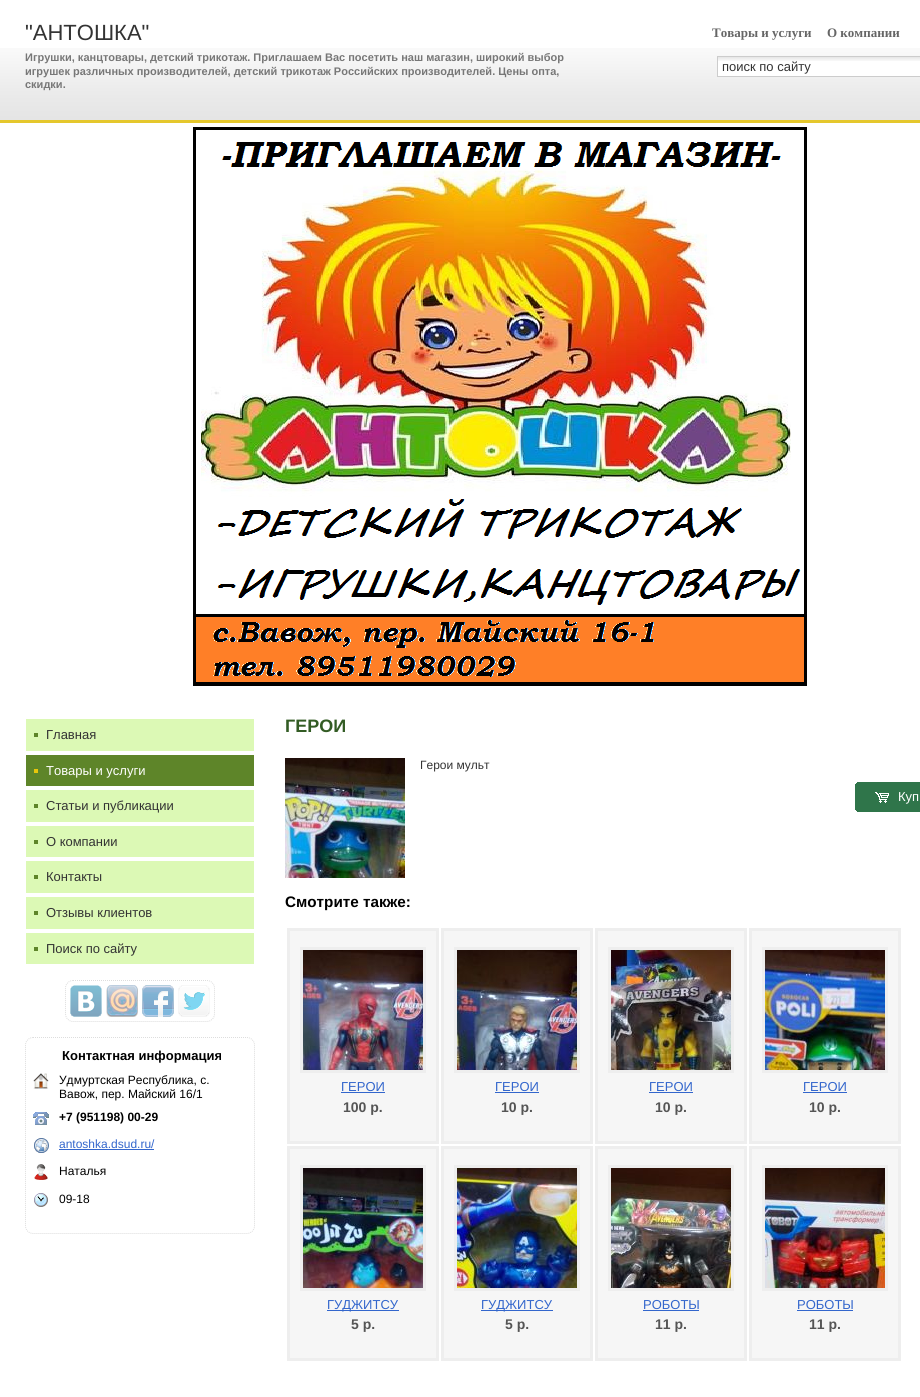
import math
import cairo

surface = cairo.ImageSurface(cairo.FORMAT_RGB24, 920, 1397)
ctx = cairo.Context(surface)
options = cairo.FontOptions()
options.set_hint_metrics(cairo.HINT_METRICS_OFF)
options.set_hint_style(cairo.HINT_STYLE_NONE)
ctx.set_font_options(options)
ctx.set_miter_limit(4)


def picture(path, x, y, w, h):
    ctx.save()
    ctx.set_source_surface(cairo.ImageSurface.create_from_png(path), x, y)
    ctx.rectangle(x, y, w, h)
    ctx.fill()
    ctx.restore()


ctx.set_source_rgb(1, 1, 1)
ctx.paint()
picture("img1.png", 0, 48, 920, 72)
ctx.set_source_rgb(0.898, 0.78, 0.173)
ctx.rectangle(0, 120, 920, 3)
ctx.fill()
ctx.select_font_face("Liberation Sans")
ctx.set_font_size(22)
ctx.set_source_rgb(0.2, 0.2, 0.2)
ctx.move_to(25, 40)
ctx.show_text("\"АНТОШКА\"")
ctx.select_font_face("Liberation Sans", cairo.FONT_SLANT_NORMAL, cairo.FONT_WEIGHT_BOLD)
ctx.set_font_size(11)
ctx.set_source_rgb(0.467, 0.467, 0.467)
ctx.move_to(25, 61)
ctx.show_text("Игрушки, канцтовары, детский трикотаж. Приглашаем Вас посетить наш магазин, широкий выбор")
ctx.move_to(25, 75)
ctx.show_text("игрушек различных производителей, детский трикотаж Российских производителей. Цены опта,")
ctx.move_to(25, 88)
ctx.show_text("скидки.")
ctx.select_font_face("Liberation Serif", cairo.FONT_SLANT_NORMAL, cairo.FONT_WEIGHT_BOLD)
ctx.set_font_size(13)
ctx.set_source_rgb(0.4, 0.4, 0.4)
ctx.move_to(712, 37)
ctx.show_text("Товары и услуги")
ctx.move_to(827, 37)
ctx.show_text("О компании")
ctx.set_source_rgb(1, 1, 1)
ctx.rectangle(718, 61, 202, 15)
ctx.fill()
picture("img2.png", 718, 57, 202, 4)
ctx.rectangle(717.5, 56.5, 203, 20)
ctx.set_source_rgb(0.8, 0.8, 0.8)
ctx.set_line_width(1)
ctx.stroke()
ctx.select_font_face("Liberation Sans")
ctx.set_source_rgb(0.2, 0.2, 0.2)
ctx.move_to(722, 71)
ctx.show_text("поиск по сайту")
picture("img3.png", 193, 127, 614, 559)
ctx.set_source_rgb(0.863, 0.973, 0.71)
ctx.rectangle(26, 719, 228, 32)
ctx.fill()
ctx.set_source_rgb(0.369, 0.522, 0.161)
ctx.rectangle(34, 733, 4, 4)
ctx.fill()
ctx.set_source_rgb(0.2, 0.2, 0.2)
ctx.move_to(46, 739)
ctx.show_text("Главная")
ctx.set_source_rgb(0.369, 0.522, 0.161)
ctx.rectangle(26, 755, 228, 31)
ctx.fill()
ctx.set_source_rgb(0.91, 0.776, 0.043)
ctx.rectangle(34, 769, 4, 4)
ctx.fill()
ctx.set_source_rgb(1, 1, 1)
ctx.move_to(46, 775)
ctx.show_text("Товары и услуги")
ctx.set_source_rgb(0.863, 0.973, 0.71)
ctx.rectangle(26, 790, 228, 32)
ctx.fill()
ctx.set_source_rgb(0.369, 0.522, 0.161)
ctx.rectangle(34, 804, 4, 4)
ctx.fill()
ctx.set_source_rgb(0.2, 0.2, 0.2)
ctx.move_to(46, 810)
ctx.show_text("Статьи и публикации")
ctx.set_source_rgb(0.863, 0.973, 0.71)
ctx.rectangle(26, 826, 228, 31)
ctx.fill()
ctx.set_source_rgb(0.369, 0.522, 0.161)
ctx.rectangle(34, 840, 4, 4)
ctx.fill()
ctx.set_source_rgb(0.2, 0.2, 0.2)
ctx.move_to(46, 846)
ctx.show_text("О компании")
ctx.set_source_rgb(0.863, 0.973, 0.71)
ctx.rectangle(26, 861, 228, 32)
ctx.fill()
ctx.set_source_rgb(0.369, 0.522, 0.161)
ctx.rectangle(34, 875, 4, 4)
ctx.fill()
ctx.set_source_rgb(0.2, 0.2, 0.2)
ctx.move_to(46, 881)
ctx.show_text("Контакты")
ctx.set_source_rgb(0.863, 0.973, 0.71)
ctx.rectangle(26, 897, 228, 32)
ctx.fill()
ctx.set_source_rgb(0.369, 0.522, 0.161)
ctx.rectangle(34, 911, 4, 4)
ctx.fill()
ctx.set_source_rgb(0.2, 0.2, 0.2)
ctx.move_to(46, 917)
ctx.show_text("Отзывы клиентов")
ctx.set_source_rgb(0.863, 0.973, 0.71)
ctx.rectangle(26, 933, 228, 31)
ctx.fill()
ctx.set_source_rgb(0.369, 0.522, 0.161)
ctx.rectangle(34, 947, 4, 4)
ctx.fill()
ctx.set_source_rgb(0.2, 0.2, 0.2)
ctx.move_to(46, 953)
ctx.show_text("Поиск по сайту")
ctx.new_path()
ctx.move_to(73, 980.5)
ctx.line_to(207, 980.5)
ctx.curve_to(211, 980.5, 214.5, 984, 214.5, 988)
ctx.line_to(214.5, 1014)
ctx.curve_to(214.5, 1018, 211, 1021.5, 207, 1021.5)
ctx.line_to(73, 1021.5)
ctx.curve_to(69, 1021.5, 65.5, 1018, 65.5, 1014)
ctx.line_to(65.5, 988)
ctx.curve_to(65.5, 984, 69, 980.5, 73, 980.5)
ctx.close_path()
ctx.set_source_rgb(0.867, 0.867, 0.867)
ctx.set_dash([1, 1])
ctx.stroke()
picture("img4.png", 70, 985, 32, 32)
picture("img5.png", 106, 985, 32, 32)
picture("img6.png", 142, 985, 32, 32)
picture("img7.png", 178, 985, 32, 32)
ctx.new_path()
ctx.move_to(33, 1037.5)
ctx.line_to(247, 1037.5)
ctx.curve_to(251, 1037.5, 254.5, 1041, 254.5, 1045)
ctx.line_to(254.5, 1226)
ctx.curve_to(254.5, 1230, 251, 1233.5, 247, 1233.5)
ctx.line_to(33, 1233.5)
ctx.curve_to(29, 1233.5, 25.5, 1230, 25.5, 1226)
ctx.line_to(25.5, 1045)
ctx.curve_to(25.5, 1041, 29, 1037.5, 33, 1037.5)
ctx.close_path()
ctx.stroke()
ctx.select_font_face("Liberation Sans", cairo.FONT_SLANT_NORMAL, cairo.FONT_WEIGHT_BOLD)
ctx.set_source_rgb(0, 0, 0)
ctx.move_to(62, 1060)
ctx.show_text("Контактная информация")
picture("img8.png", 33, 1073, 16, 16)
ctx.select_font_face("Liberation Sans")
ctx.set_font_size(12)
ctx.move_to(59, 1084)
ctx.show_text("Удмуртская Республика, с.")
ctx.move_to(59, 1098)
ctx.show_text("Вавож, пер. Майский 16/1")
picture("img9.png", 33, 1112, 16, 13)
ctx.select_font_face("Liberation Sans", cairo.FONT_SLANT_NORMAL, cairo.FONT_WEIGHT_BOLD)
ctx.move_to(59, 1121)
ctx.show_text("+7 (951198) 00-29")
picture("img10.png", 34, 1138, 15, 15)
ctx.select_font_face("Liberation Sans")
ctx.set_source_rgb(0.2, 0.4, 0.8)
ctx.move_to(59, 1148)
ctx.show_text("antoshka.dsud.ru/")
ctx.rectangle(59, 1149, 95, 1)
ctx.fill()
picture("img11.png", 34, 1164, 14, 16)
ctx.set_source_rgb(0, 0, 0)
ctx.move_to(59, 1175)
ctx.show_text("Наталья")
picture("img12.png", 34, 1193, 14, 14)
ctx.move_to(59, 1203)
ctx.show_text("09-18")
ctx.select_font_face("Liberation Sans", cairo.FONT_SLANT_NORMAL, cairo.FONT_WEIGHT_BOLD)
ctx.set_font_size(18)
ctx.set_source_rgb(0.2, 0.361, 0.141)
ctx.move_to(285, 732)
ctx.show_text("ГЕРОИ")
picture("img13.png", 285, 758, 120, 120)
ctx.select_font_face("Liberation Sans")
ctx.set_font_size(12)
ctx.set_source_rgb(0.2, 0.2, 0.2)
ctx.move_to(420, 769)
ctx.show_text("Герои мульт")
ctx.set_source_rgb(0.184, 0.459, 0.29)
ctx.rectangle(855, 782, 65, 30)
ctx.fill()
picture("img14.png", 855, 782, 2, 30)
picture("img15.png", 875, 792, 14, 11)
ctx.set_font_size(13)
ctx.set_source_rgb(1, 1, 1)
ctx.move_to(898, 801)
ctx.show_text("Куп")
ctx.select_font_face("Liberation Sans", cairo.FONT_SLANT_NORMAL, cairo.FONT_WEIGHT_BOLD)
ctx.set_font_size(15.25)
ctx.set_source_rgb(0, 0, 0)
ctx.move_to(285, 907)
ctx.show_text("Смотрите также:")
ctx.set_source_rgb(0.961, 0.961, 0.961)
ctx.rectangle(288.5, 929.5, 149, 213)
ctx.fill_preserve()
ctx.set_source_rgb(0.933, 0.933, 0.933)
ctx.set_line_width(3)
ctx.set_dash([])
ctx.stroke()
picture("img16.png", 303, 950, 120, 120)
ctx.rectangle(301.5, 948.5, 123, 123)
ctx.stroke()
ctx.select_font_face("Liberation Sans")
ctx.set_font_size(13)
ctx.set_source_rgb(0.2, 0.4, 0.8)
ctx.move_to(341, 1091)
ctx.show_text("ГЕРОИ")
ctx.rectangle(341, 1092, 44, 1)
ctx.fill()
ctx.select_font_face("Liberation Sans", cairo.FONT_SLANT_NORMAL, cairo.FONT_WEIGHT_BOLD)
ctx.set_font_size(14)
ctx.set_source_rgb(0.333, 0.333, 0.333)
ctx.move_to(343, 1112)
ctx.show_text("100 р.")
ctx.set_source_rgb(0.961, 0.961, 0.961)
ctx.rectangle(442.5, 929.5, 149, 213)
ctx.fill_preserve()
ctx.set_source_rgb(0.933, 0.933, 0.933)
ctx.stroke()
picture("img17.png", 457, 950, 120, 120)
ctx.rectangle(455.5, 948.5, 123, 123)
ctx.stroke()
ctx.select_font_face("Liberation Sans")
ctx.set_font_size(13)
ctx.set_source_rgb(0.2, 0.4, 0.8)
ctx.move_to(495, 1091)
ctx.show_text("ГЕРОИ")
ctx.rectangle(495, 1092, 44, 1)
ctx.fill()
ctx.select_font_face("Liberation Sans", cairo.FONT_SLANT_NORMAL, cairo.FONT_WEIGHT_BOLD)
ctx.set_font_size(14)
ctx.set_source_rgb(0.333, 0.333, 0.333)
ctx.move_to(501, 1112)
ctx.show_text("10 р.")
ctx.set_source_rgb(0.961, 0.961, 0.961)
ctx.rectangle(596.5, 929.5, 149, 213)
ctx.fill_preserve()
ctx.set_source_rgb(0.933, 0.933, 0.933)
ctx.stroke()
picture("img18.png", 611, 950, 120, 120)
ctx.rectangle(609.5, 948.5, 123, 123)
ctx.stroke()
ctx.select_font_face("Liberation Sans")
ctx.set_font_size(13)
ctx.set_source_rgb(0.2, 0.4, 0.8)
ctx.move_to(649, 1091)
ctx.show_text("ГЕРОИ")
ctx.rectangle(649, 1092, 44, 1)
ctx.fill()
ctx.select_font_face("Liberation Sans", cairo.FONT_SLANT_NORMAL, cairo.FONT_WEIGHT_BOLD)
ctx.set_font_size(14)
ctx.set_source_rgb(0.333, 0.333, 0.333)
ctx.move_to(655, 1112)
ctx.show_text("10 р.")
ctx.set_source_rgb(0.961, 0.961, 0.961)
ctx.rectangle(750.5, 929.5, 149, 213)
ctx.fill_preserve()
ctx.set_source_rgb(0.933, 0.933, 0.933)
ctx.stroke()
picture("img19.png", 765, 950, 120, 120)
ctx.rectangle(763.5, 948.5, 123, 123)
ctx.stroke()
ctx.select_font_face("Liberation Sans")
ctx.set_font_size(13)
ctx.set_source_rgb(0.2, 0.4, 0.8)
ctx.move_to(803, 1091)
ctx.show_text("ГЕРОИ")
ctx.rectangle(803, 1092, 44, 1)
ctx.fill()
ctx.select_font_face("Liberation Sans", cairo.FONT_SLANT_NORMAL, cairo.FONT_WEIGHT_BOLD)
ctx.set_font_size(14)
ctx.set_source_rgb(0.333, 0.333, 0.333)
ctx.move_to(809, 1112)
ctx.show_text("10 р.")
ctx.set_source_rgb(0.961, 0.961, 0.961)
ctx.rectangle(288.5, 1147.5, 149, 212)
ctx.fill_preserve()
ctx.set_source_rgb(0.933, 0.933, 0.933)
ctx.stroke()
picture("img20.png", 303, 1168, 120, 120)
ctx.rectangle(301.5, 1166.5, 123, 123)
ctx.stroke()
ctx.set_source_rgb(0.2, 0.4, 0.8)
ctx.rectangle(327, 1310, 72, 1)
ctx.fill()
ctx.select_font_face("Liberation Sans")
ctx.set_font_size(13)
ctx.move_to(327, 1309)
ctx.show_text("ГУДЖИТСУ")
ctx.select_font_face("Liberation Sans", cairo.FONT_SLANT_NORMAL, cairo.FONT_WEIGHT_BOLD)
ctx.set_font_size(14)
ctx.set_source_rgb(0.333, 0.333, 0.333)
ctx.move_to(351, 1329)
ctx.show_text("5 р.")
ctx.set_source_rgb(0.961, 0.961, 0.961)
ctx.rectangle(442.5, 1147.5, 149, 212)
ctx.fill_preserve()
ctx.set_source_rgb(0.933, 0.933, 0.933)
ctx.stroke()
picture("img21.png", 457, 1168, 120, 120)
ctx.rectangle(455.5, 1166.5, 123, 123)
ctx.stroke()
ctx.set_source_rgb(0.2, 0.4, 0.8)
ctx.rectangle(481, 1310, 72, 1)
ctx.fill()
ctx.select_font_face("Liberation Sans")
ctx.set_font_size(13)
ctx.move_to(481, 1309)
ctx.show_text("ГУДЖИТСУ")
ctx.select_font_face("Liberation Sans", cairo.FONT_SLANT_NORMAL, cairo.FONT_WEIGHT_BOLD)
ctx.set_font_size(14)
ctx.set_source_rgb(0.333, 0.333, 0.333)
ctx.move_to(505, 1329)
ctx.show_text("5 р.")
ctx.set_source_rgb(0.961, 0.961, 0.961)
ctx.rectangle(596.5, 1147.5, 149, 212)
ctx.fill_preserve()
ctx.set_source_rgb(0.933, 0.933, 0.933)
ctx.stroke()
picture("img22.png", 611, 1168, 120, 120)
ctx.rectangle(609.5, 1166.5, 123, 123)
ctx.stroke()
ctx.select_font_face("Liberation Sans")
ctx.set_font_size(13)
ctx.set_source_rgb(0.2, 0.4, 0.8)
ctx.move_to(643, 1309)
ctx.show_text("РОБОТЫ")
ctx.rectangle(643, 1310, 56, 1)
ctx.fill()
ctx.select_font_face("Liberation Sans", cairo.FONT_SLANT_NORMAL, cairo.FONT_WEIGHT_BOLD)
ctx.set_font_size(14)
ctx.set_source_rgb(0.333, 0.333, 0.333)
ctx.move_to(655, 1329)
ctx.show_text("11 р.")
ctx.set_source_rgb(0.961, 0.961, 0.961)
ctx.rectangle(750.5, 1147.5, 149, 212)
ctx.fill_preserve()
ctx.set_source_rgb(0.933, 0.933, 0.933)
ctx.stroke()
picture("img23.png", 765, 1168, 120, 120)
ctx.rectangle(763.5, 1166.5, 123, 123)
ctx.stroke()
ctx.select_font_face("Liberation Sans")
ctx.set_font_size(13)
ctx.set_source_rgb(0.2, 0.4, 0.8)
ctx.move_to(797, 1309)
ctx.show_text("РОБОТЫ")
ctx.rectangle(797, 1310, 56, 1)
ctx.fill()
ctx.select_font_face("Liberation Sans", cairo.FONT_SLANT_NORMAL, cairo.FONT_WEIGHT_BOLD)
ctx.set_font_size(14)
ctx.set_source_rgb(0.333, 0.333, 0.333)
ctx.move_to(809, 1329)
ctx.show_text("11 р.")
surface.write_to_png("page.png")
